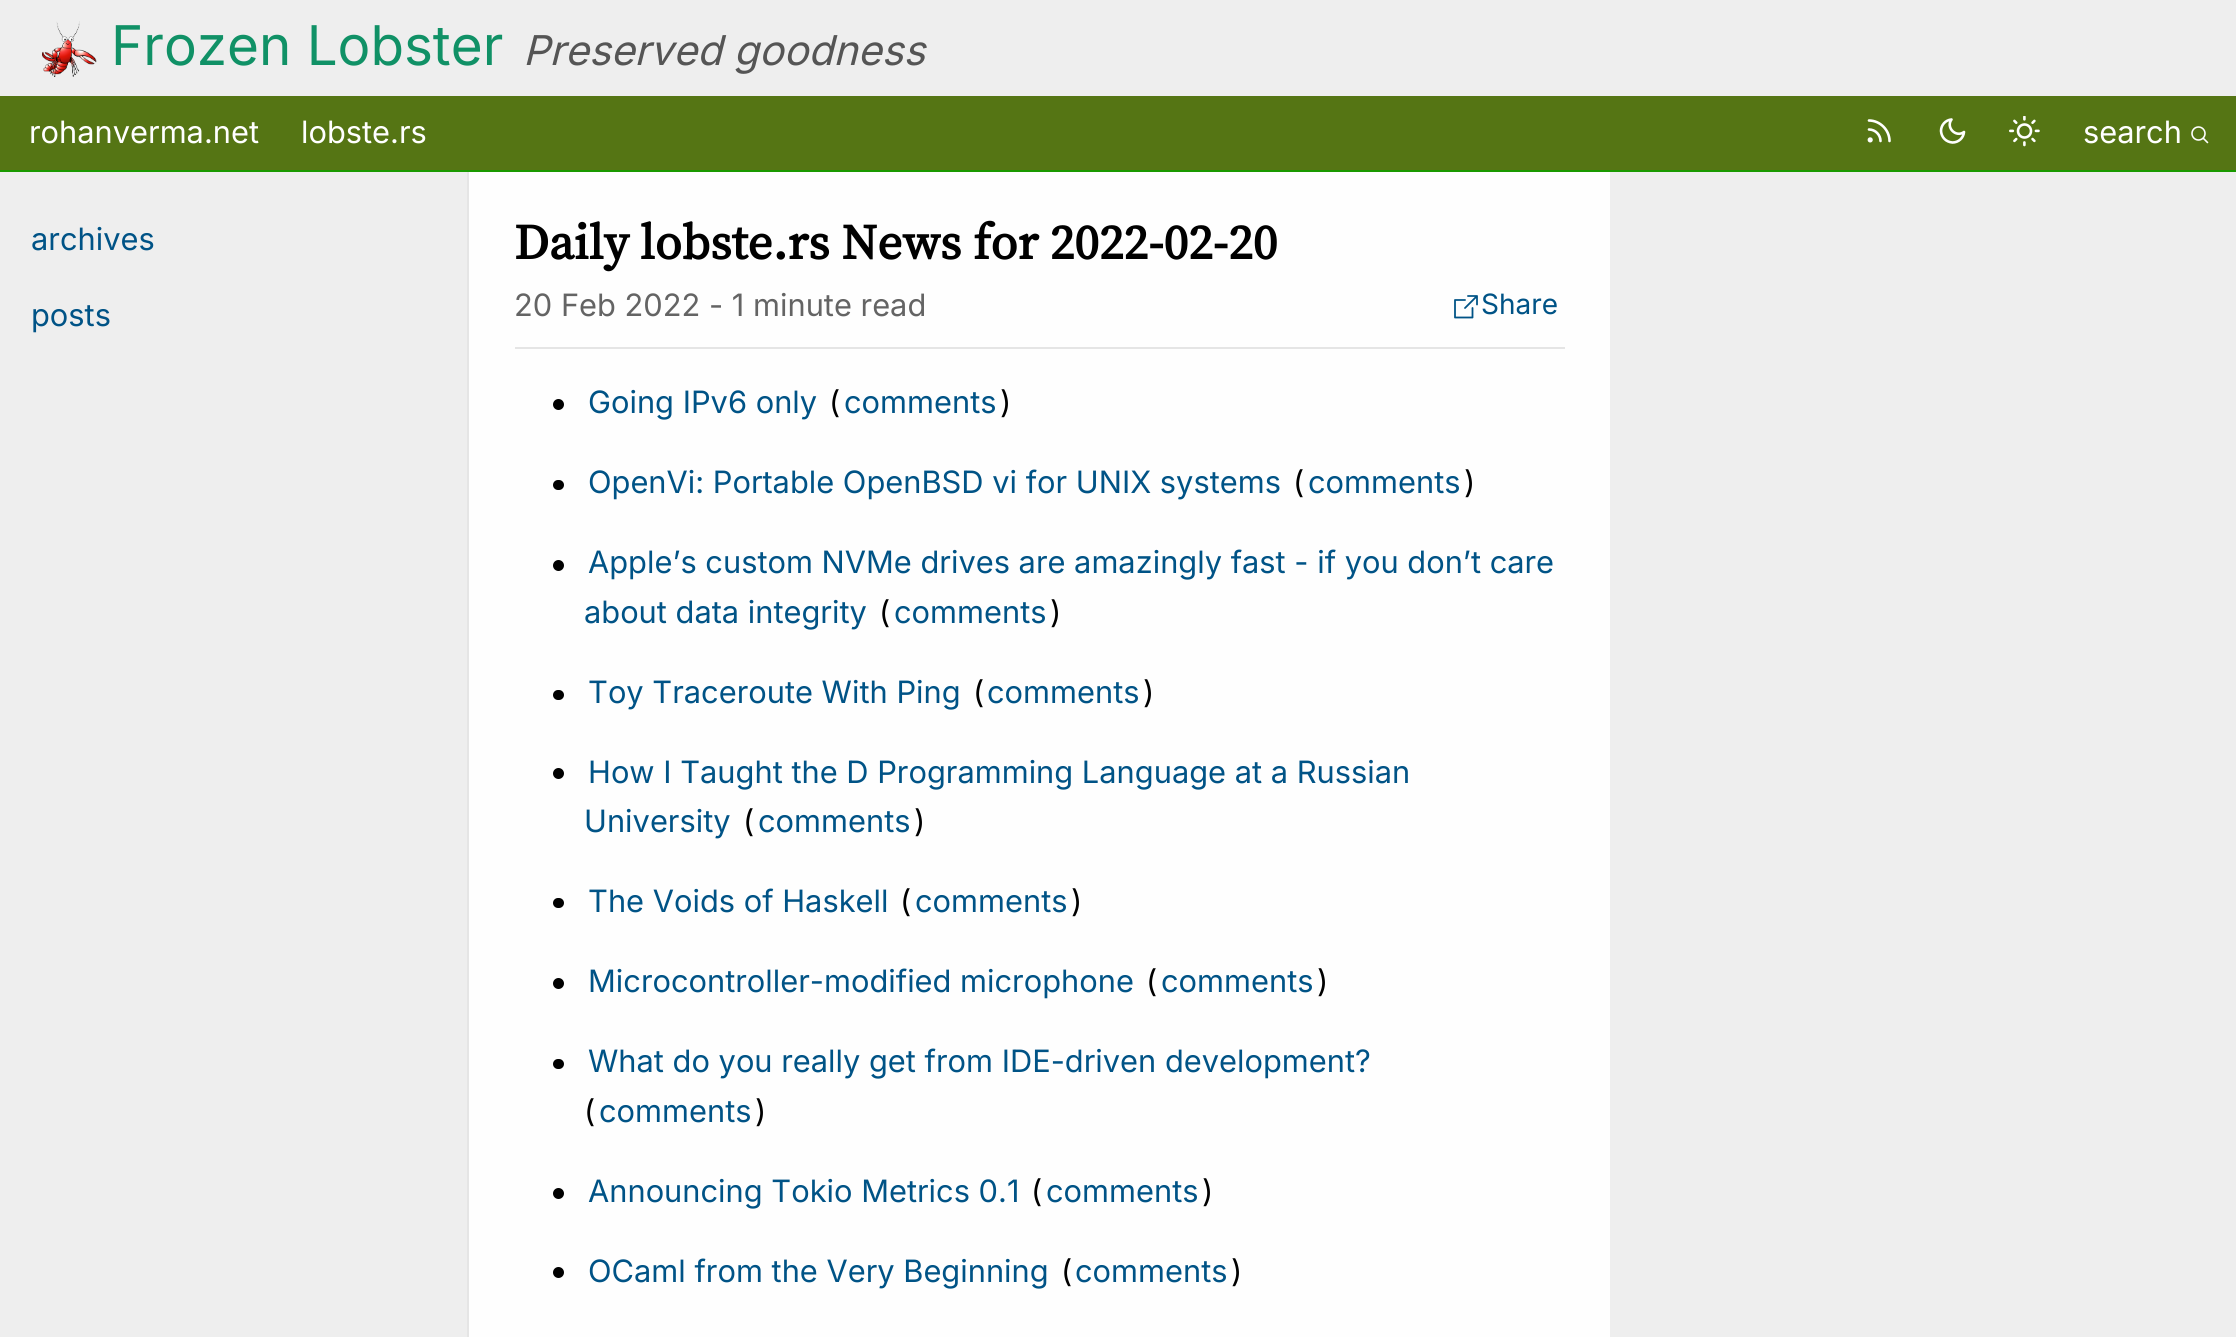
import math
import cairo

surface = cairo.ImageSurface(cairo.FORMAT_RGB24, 2236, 1337)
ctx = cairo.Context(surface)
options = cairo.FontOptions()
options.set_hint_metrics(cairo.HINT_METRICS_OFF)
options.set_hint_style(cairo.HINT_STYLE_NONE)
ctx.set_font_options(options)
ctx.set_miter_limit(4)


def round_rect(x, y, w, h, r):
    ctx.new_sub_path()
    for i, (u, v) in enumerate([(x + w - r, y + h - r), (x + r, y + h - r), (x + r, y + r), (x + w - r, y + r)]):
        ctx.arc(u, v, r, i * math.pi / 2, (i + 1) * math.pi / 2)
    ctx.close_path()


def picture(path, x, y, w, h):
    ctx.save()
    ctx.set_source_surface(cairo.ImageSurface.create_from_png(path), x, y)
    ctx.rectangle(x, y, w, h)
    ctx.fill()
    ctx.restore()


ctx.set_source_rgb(0.933, 0.933, 0.933)
ctx.paint()
picture("img1.png", 42, 21, 55, 56)
ctx.select_font_face("Inter")
ctx.set_font_size(54.75)
ctx.set_source_rgb(0.063, 0.569, 0.4)
ctx.move_to(111, 65)
ctx.show_text("Frozen Lobster")
ctx.select_font_face("Inter", cairo.FONT_SLANT_ITALIC)
ctx.set_font_size(41.1)
ctx.set_source_rgb(0.333, 0.333, 0.333)
ctx.move_to(523, 65)
ctx.show_text("Preserved goodness")
ctx.set_source_rgb(0.333, 0.459, 0.082)
ctx.rectangle(0, 96, 2236, 74)
ctx.fill()
ctx.set_source_rgb(0.102, 0.6, 0)
ctx.rectangle(0, 170, 2236, 2)
ctx.fill()
ctx.select_font_face("Inter")
ctx.set_font_size(30.8)
ctx.set_source_rgb(1, 1, 1)
ctx.move_to(29, 143)
ctx.show_text("rohanverma.net")
ctx.move_to(301, 143)
ctx.show_text("lobste.rs")
ctx.new_path()
ctx.move_to(1869, 129.5)
ctx.curve_to(1875.5, 129.5, 1880.5, 135, 1880.5, 141)
ctx.move_to(1869, 120.5)
ctx.curve_to(1880, 120.5, 1889.5, 130, 1889.5, 141)
ctx.set_line_width(2.6)
ctx.set_line_cap(cairo.LINE_CAP_ROUND)
ctx.set_line_join(cairo.LINE_JOIN_ROUND)
ctx.stroke()
ctx.new_path()
ctx.move_to(1964, 132)
ctx.curve_to(1963.5, 138, 1958.5, 142.5, 1952.5, 142.5)
ctx.curve_to(1946, 142, 1941.5, 137.5, 1941, 131)
ctx.curve_to(1941, 125, 1945.5, 120, 1951.5, 119.5)
ctx.curve_to(1945.5, 127.5, 1956, 138, 1964, 132)
ctx.close_path()
ctx.stroke()
picture("img2.png", 2009, 116, 31, 31)
ctx.move_to(2083, 143)
ctx.show_text("search")
ctx.new_path()
ctx.arc(2198.5, 133.5, 6.5, 0, 2 * math.pi)
ctx.set_line_width(1.6)
ctx.set_line_cap(cairo.LINE_CAP_BUTT)
ctx.set_line_join(cairo.LINE_JOIN_MITER)
ctx.stroke()
ctx.new_path()
ctx.move_to(2203.5, 138.5)
ctx.line_to(2207.5, 142.5)
ctx.set_line_cap(cairo.LINE_CAP_ROUND)
ctx.set_line_join(cairo.LINE_JOIN_ROUND)
ctx.stroke()
ctx.arc(1870.2, 139.9, 1.3, 0, 2 * math.pi)
ctx.set_line_width(2.6)
ctx.set_line_cap(cairo.LINE_CAP_BUTT)
ctx.set_line_join(cairo.LINE_JOIN_MITER)
ctx.stroke()
ctx.set_source_rgb(0, 0.325, 0.525)
ctx.move_to(31, 250)
ctx.show_text("archives")
ctx.move_to(31, 326)
ctx.show_text("posts")
ctx.set_source_rgb(0.996, 0.996, 0.996)
ctx.rectangle(469, 172, 1141, 1165)
ctx.fill()
ctx.set_source_rgb(0.898, 0.898, 0.898)
ctx.rectangle(467, 172, 2, 1165)
ctx.fill()
ctx.select_font_face("Source Serif Pro", cairo.FONT_SLANT_NORMAL, cairo.FONT_WEIGHT_BOLD)
ctx.set_font_size(49.25)
ctx.set_source_rgb(0, 0, 0)
ctx.move_to(514, 259)
ctx.show_text("Daily lobste.rs News for 2022-02-20")
ctx.select_font_face("Inter")
ctx.set_font_size(30.8)
ctx.set_source_rgb(0.392, 0.392, 0.392)
ctx.move_to(514, 316)
ctx.show_text("20 Feb 2022 - 1 minute read")
ctx.set_font_size(28)
ctx.set_source_rgb(0, 0.325, 0.525)
ctx.move_to(1481, 314)
ctx.show_text("Share")
ctx.new_path()
ctx.move_to(1465, 300)
ctx.line_to(1455, 300)
ctx.line_to(1455, 317.5)
ctx.line_to(1472.5, 317.5)
ctx.line_to(1472.5, 308)
ctx.move_to(1468, 296)
ctx.line_to(1477, 296)
ctx.line_to(1477, 304.5)
ctx.move_to(1477, 296)
ctx.line_to(1465, 308)
ctx.set_line_width(1.8)
ctx.set_line_cap(cairo.LINE_CAP_ROUND)
ctx.set_line_join(cairo.LINE_JOIN_ROUND)
ctx.stroke()
ctx.set_source_rgb(0.898, 0.898, 0.898)
ctx.rectangle(515, 347, 1050, 2)
ctx.fill()
ctx.set_source_rgb(0, 0, 0)
ctx.arc(558.5, 404.5, 5.5, 0, 2 * math.pi)
ctx.fill()
ctx.set_font_size(30.8)
ctx.set_source_rgb(0, 0.325, 0.525)
ctx.move_to(588, 413)
ctx.show_text("Going IPv6 only")
ctx.set_source_rgb(0, 0, 0)
ctx.move_to(829, 413)
ctx.show_text("(")
ctx.set_source_rgb(0, 0.325, 0.525)
ctx.move_to(844, 413)
ctx.show_text("comments")
ctx.set_source_rgb(0, 0, 0)
ctx.move_to(1000, 413)
ctx.show_text(")")
round_rect(553, 480, 11, 10, 5)
ctx.fill()
ctx.set_source_rgb(0, 0.325, 0.525)
ctx.move_to(588, 493)
ctx.show_text("OpenVi: Portable OpenBSD vi for UNIX systems")
ctx.set_source_rgb(0, 0, 0)
ctx.move_to(1293, 493)
ctx.show_text("(")
ctx.set_source_rgb(0, 0.325, 0.525)
ctx.move_to(1308, 493)
ctx.show_text("comments")
ctx.set_source_rgb(0, 0, 0)
ctx.move_to(1464, 493)
ctx.show_text(")")
ctx.new_path()
ctx.arc(558.5, 565.5, 5.5, 0, 2 * math.pi)
ctx.fill()
ctx.set_source_rgb(0, 0.325, 0.525)
ctx.move_to(588, 573)
ctx.show_text("Apple’s custom NVMe drives are amazingly fast - if you don’t care")
ctx.move_to(584, 623)
ctx.show_text("about data integrity")
ctx.set_source_rgb(0, 0, 0)
ctx.move_to(879, 623)
ctx.show_text("(")
ctx.set_source_rgb(0, 0.325, 0.525)
ctx.move_to(894, 623)
ctx.show_text("comments")
ctx.set_source_rgb(0, 0, 0)
ctx.move_to(1050, 623)
ctx.show_text(")")
round_rect(553, 690, 11, 10, 5)
ctx.fill()
ctx.set_source_rgb(0, 0.325, 0.525)
ctx.move_to(588, 703)
ctx.show_text("Toy Traceroute With Ping")
ctx.set_source_rgb(0, 0, 0)
ctx.move_to(973, 703)
ctx.show_text("(")
ctx.set_source_rgb(0, 0.325, 0.525)
ctx.move_to(987, 703)
ctx.show_text("comments")
ctx.set_source_rgb(0, 0, 0)
ctx.move_to(1143, 703)
ctx.show_text(")")
ctx.new_path()
ctx.arc(558.5, 773.5, 5.5, 0, 2 * math.pi)
ctx.fill()
ctx.set_source_rgb(0, 0.325, 0.525)
ctx.move_to(588, 783)
ctx.show_text("How I Taught the D Programming Language at a Russian")
ctx.move_to(584, 832)
ctx.show_text("University")
ctx.set_source_rgb(0, 0, 0)
ctx.move_to(743, 832)
ctx.show_text("(")
ctx.set_source_rgb(0, 0.325, 0.525)
ctx.move_to(758, 832)
ctx.show_text("comments")
ctx.set_source_rgb(0, 0, 0)
ctx.move_to(914, 832)
ctx.show_text(")")
round_rect(553, 898, 11, 10, 5)
ctx.fill()
ctx.set_source_rgb(0, 0.325, 0.525)
ctx.move_to(588, 912)
ctx.show_text("The Voids of Haskell")
ctx.set_source_rgb(0, 0, 0)
ctx.move_to(900, 912)
ctx.show_text("(")
ctx.set_source_rgb(0, 0.325, 0.525)
ctx.move_to(915, 912)
ctx.show_text("comments")
ctx.set_source_rgb(0, 0, 0)
ctx.move_to(1071, 912)
ctx.show_text(")")
ctx.new_path()
ctx.arc(558.5, 983.5, 5.5, 0, 2 * math.pi)
ctx.fill()
ctx.set_source_rgb(0, 0.325, 0.525)
ctx.move_to(588, 992)
ctx.show_text("Microcontroller-modified microphone")
ctx.set_source_rgb(0, 0, 0)
ctx.move_to(1146, 992)
ctx.show_text("(")
ctx.set_source_rgb(0, 0.325, 0.525)
ctx.move_to(1161, 992)
ctx.show_text("comments")
ctx.set_source_rgb(0, 0, 0)
ctx.move_to(1317, 992)
ctx.show_text(")")
round_rect(553, 1059, 11, 10, 5)
ctx.fill()
ctx.set_source_rgb(0, 0.325, 0.525)
ctx.move_to(588, 1072)
ctx.show_text("What do you really get from IDE-driven development?")
ctx.set_source_rgb(0, 0, 0)
ctx.move_to(584, 1122)
ctx.show_text("(")
ctx.set_source_rgb(0, 0.325, 0.525)
ctx.move_to(599, 1122)
ctx.show_text("comments")
ctx.set_source_rgb(0, 0, 0)
ctx.move_to(755, 1122)
ctx.show_text(")")
ctx.new_path()
ctx.arc(558.5, 1193.5, 5.5, 0, 2 * math.pi)
ctx.fill()
ctx.set_source_rgb(0, 0.325, 0.525)
ctx.move_to(588, 1202)
ctx.show_text("Announcing Tokio Metrics 0.1")
ctx.set_source_rgb(0, 0, 0)
ctx.move_to(1031, 1202)
ctx.show_text("(")
ctx.set_source_rgb(0, 0.325, 0.525)
ctx.move_to(1046, 1202)
ctx.show_text("comments")
ctx.set_source_rgb(0, 0, 0)
ctx.move_to(1202, 1202)
ctx.show_text(")")
ctx.new_path()
ctx.arc(558.5, 1272.5, 5.5, 0, 2 * math.pi)
ctx.fill()
ctx.set_source_rgb(0, 0.325, 0.525)
ctx.move_to(588, 1282)
ctx.show_text("OCaml from the Very Beginning")
ctx.set_source_rgb(0, 0, 0)
ctx.move_to(1061, 1282)
ctx.show_text("(")
ctx.set_source_rgb(0, 0.325, 0.525)
ctx.move_to(1075, 1282)
ctx.show_text("comments")
ctx.set_source_rgb(0, 0, 0)
ctx.move_to(1231, 1282)
ctx.show_text(")")
surface.write_to_png("page.png")
